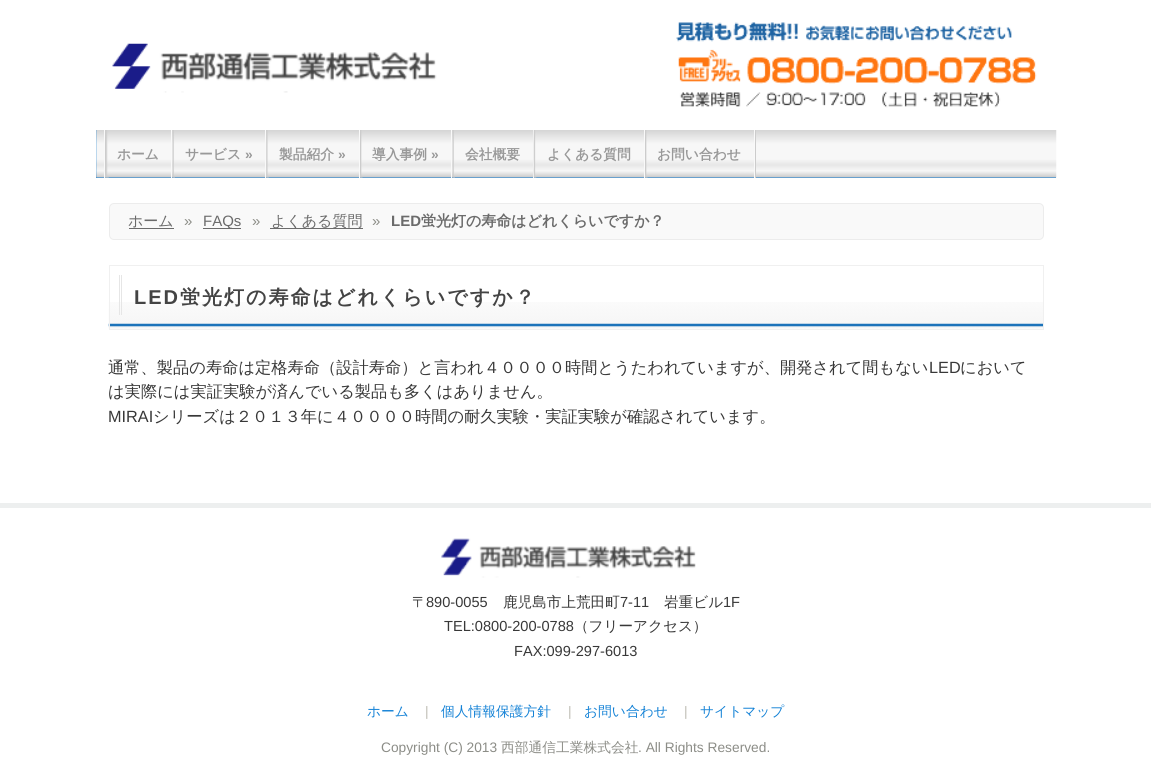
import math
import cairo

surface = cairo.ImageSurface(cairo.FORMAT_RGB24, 1151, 775)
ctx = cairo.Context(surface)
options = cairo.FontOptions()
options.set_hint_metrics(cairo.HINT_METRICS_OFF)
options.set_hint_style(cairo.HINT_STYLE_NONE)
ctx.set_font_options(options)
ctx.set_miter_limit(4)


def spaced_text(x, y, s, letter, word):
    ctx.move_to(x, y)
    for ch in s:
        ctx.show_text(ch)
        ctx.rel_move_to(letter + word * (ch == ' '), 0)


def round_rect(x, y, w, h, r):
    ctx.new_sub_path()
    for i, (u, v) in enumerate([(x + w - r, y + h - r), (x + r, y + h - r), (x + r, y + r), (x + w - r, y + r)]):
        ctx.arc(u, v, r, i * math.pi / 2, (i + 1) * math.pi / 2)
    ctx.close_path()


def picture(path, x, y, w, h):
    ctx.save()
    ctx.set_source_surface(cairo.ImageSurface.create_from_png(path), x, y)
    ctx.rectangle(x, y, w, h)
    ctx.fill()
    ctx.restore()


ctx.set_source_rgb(1, 1, 1)
ctx.paint()
picture("img1.png", 112, 43, 325, 50)
picture("img2.png", 676, 22, 361, 86)
ctx.set_source_rgb(0.027, 0.459, 0.812)
ctx.rectangle(96, 130, 960, 48)
ctx.fill()
picture("img3.png", 96, 130, 961, 48)
ctx.set_source_rgb(0.973, 0.973, 0.973)
ctx.rectangle(104, 130, 1, 48)
ctx.fill()
picture("img4.png", 105, 130, 4, 48)
ctx.rectangle(171, 130, 1, 48)
ctx.fill()
ctx.select_font_face("WenQuanYi Zen Hei", cairo.FONT_SLANT_NORMAL, cairo.FONT_WEIGHT_BOLD)
ctx.set_font_size(13.75)
ctx.set_source_rgb(0.6, 0.6, 0.6)
ctx.move_to(117, 159)
ctx.show_text("ホーム")
picture("img5.png", 172, 130, 3, 48)
ctx.set_source_rgb(0.973, 0.973, 0.973)
ctx.rectangle(265, 130, 1, 48)
ctx.fill()
ctx.set_source_rgb(0.6, 0.6, 0.6)
ctx.move_to(185, 159)
ctx.show_text("サービス")
ctx.select_font_face("Liberation Sans", cairo.FONT_SLANT_NORMAL, cairo.FONT_WEIGHT_BOLD)
ctx.move_to(245, 159)
ctx.show_text("»")
picture("img6.png", 266, 130, 3, 48)
ctx.set_source_rgb(0.973, 0.973, 0.973)
ctx.rectangle(359, 130, 1, 48)
ctx.fill()
ctx.select_font_face("WenQuanYi Zen Hei", cairo.FONT_SLANT_NORMAL, cairo.FONT_WEIGHT_BOLD)
ctx.set_source_rgb(0.6, 0.6, 0.6)
ctx.move_to(279, 159)
ctx.show_text("製品紹介")
ctx.select_font_face("Liberation Sans", cairo.FONT_SLANT_NORMAL, cairo.FONT_WEIGHT_BOLD)
ctx.move_to(338, 159)
ctx.show_text("»")
picture("img7.png", 360, 130, 3, 48)
ctx.set_source_rgb(0.973, 0.973, 0.973)
ctx.rectangle(451, 130, 1, 48)
ctx.fill()
ctx.select_font_face("WenQuanYi Zen Hei", cairo.FONT_SLANT_NORMAL, cairo.FONT_WEIGHT_BOLD)
ctx.set_source_rgb(0.6, 0.6, 0.6)
ctx.move_to(372, 159)
ctx.show_text("導入事例")
ctx.select_font_face("Liberation Sans", cairo.FONT_SLANT_NORMAL, cairo.FONT_WEIGHT_BOLD)
ctx.move_to(431, 159)
ctx.show_text("»")
picture("img5.png", 452, 130, 3, 48)
ctx.set_source_rgb(0.973, 0.973, 0.973)
ctx.rectangle(533, 130, 1, 48)
ctx.fill()
ctx.select_font_face("WenQuanYi Zen Hei", cairo.FONT_SLANT_NORMAL, cairo.FONT_WEIGHT_BOLD)
ctx.set_source_rgb(0.6, 0.6, 0.6)
ctx.move_to(465, 159)
ctx.show_text("会社概要")
picture("img8.png", 533, 130, 4, 48)
ctx.set_source_rgb(0.973, 0.973, 0.973)
ctx.rectangle(644, 130, 1, 48)
ctx.fill()
ctx.set_source_rgb(0.6, 0.6, 0.6)
ctx.move_to(547, 159)
ctx.show_text("よくある質問")
ctx.set_source_rgb(0.8, 0.8, 0.8)
ctx.rectangle(755, 130, 1, 48)
ctx.fill()
picture("img7.png", 645, 130, 3, 48)
ctx.set_source_rgb(0.973, 0.973, 0.973)
ctx.rectangle(754, 130, 1, 48)
ctx.fill()
ctx.set_source_rgb(0.6, 0.6, 0.6)
ctx.move_to(657, 159)
ctx.show_text("お問い合わせ")
ctx.set_source_rgb(0.976, 0.976, 0.976)
round_rect(109.5, 203.5, 934, 36, 4.5)
ctx.fill_preserve()
ctx.set_source_rgb(0.922, 0.922, 0.922)
ctx.set_line_width(1)
ctx.stroke()
ctx.select_font_face("WenQuanYi Zen Hei Medium")
ctx.set_font_size(15)
ctx.set_source_rgb(0.42, 0.42, 0.42)
ctx.move_to(128, 226)
ctx.show_text("ホーム")
ctx.rectangle(129, 228, 45, 1)
ctx.fill()
ctx.select_font_face("Liberation Sans")
ctx.set_source_rgb(0.549, 0.553, 0.529)
ctx.move_to(184, 226)
ctx.show_text("»")
ctx.set_source_rgb(0.42, 0.42, 0.42)
ctx.rectangle(203, 228, 38, 1)
ctx.fill()
ctx.move_to(203, 226)
ctx.show_text("FAQs")
ctx.set_source_rgb(0.549, 0.553, 0.529)
ctx.move_to(252, 226)
ctx.show_text("»")
ctx.set_source_rgb(0.42, 0.42, 0.42)
ctx.rectangle(270, 228, 93, 1)
ctx.fill()
ctx.select_font_face("WenQuanYi Zen Hei Medium")
ctx.move_to(271, 226)
ctx.show_text("よくある質問")
ctx.select_font_face("Liberation Sans")
ctx.set_source_rgb(0.549, 0.553, 0.529)
ctx.move_to(372, 226)
ctx.show_text("»")
ctx.select_font_face("Liberation Sans", cairo.FONT_SLANT_NORMAL, cairo.FONT_WEIGHT_BOLD)
ctx.set_source_rgb(0.42, 0.42, 0.42)
ctx.move_to(391, 226)
ctx.show_text("LED")
ctx.select_font_face("WenQuanYi Zen Hei", cairo.FONT_SLANT_NORMAL, cairo.FONT_WEIGHT_BOLD)
ctx.move_to(421, 226)
ctx.show_text("蛍光灯の寿命はどれくらいですか？")
picture("img9.png", 108, 302, 935, 27)
ctx.rectangle(109.5, 265.5, 934, 64)
ctx.set_source_rgb(0.941, 0.941, 0.941)
ctx.stroke()
ctx.set_source_rgb(0.902, 0.902, 0.902)
ctx.rectangle(119, 275, 1, 40)
ctx.fill()
ctx.rectangle(121, 275, 1, 40)
ctx.fill()
ctx.select_font_face("Liberation Sans", cairo.FONT_SLANT_NORMAL, cairo.FONT_WEIGHT_BOLD)
ctx.set_font_size(20)
ctx.set_source_rgb(0.267, 0.267, 0.267)
spaced_text(134, 304, "LED", 2, 0)
ctx.select_font_face("WenQuanYi Zen Hei", cairo.FONT_SLANT_NORMAL, cairo.FONT_WEIGHT_BOLD)
spaced_text(180, 304, "蛍光灯の寿命はどれくらいですか？", 2, 0)
ctx.select_font_face("WenQuanYi Zen Hei Medium")
ctx.set_font_size(16.25)
ctx.set_source_rgb(0.22, 0.22, 0.22)
ctx.move_to(108, 373)
ctx.show_text("通常、製品の寿命は定格寿命（設計寿命）と言われ４００００時間とうたわれていますが、開発されて間もない")
ctx.select_font_face("Liberation Sans")
ctx.move_to(929, 373)
ctx.show_text("LED")
ctx.select_font_face("WenQuanYi Zen Hei Medium")
ctx.move_to(960, 373)
ctx.show_text("において")
ctx.move_to(108, 397)
ctx.show_text("は実際には実証実験が済んでいる製品も多くはありません。")
ctx.select_font_face("Liberation Sans")
ctx.move_to(108, 422)
ctx.show_text("MIRAI")
ctx.select_font_face("WenQuanYi Zen Hei Medium")
ctx.move_to(153, 422)
ctx.show_text("シリーズは２０１３年に４００００時間の耐久実験・実証実験が確認されています。")
ctx.set_source_rgb(0.929, 0.937, 0.937)
ctx.rectangle(0, 503, 1151, 5)
ctx.fill()
picture("img10.png", 441, 538, 255, 40)
ctx.set_font_size(14.6)
ctx.set_source_rgb(0.22, 0.22, 0.22)
ctx.move_to(412, 607)
ctx.show_text("〒")
ctx.select_font_face("Liberation Sans")
ctx.move_to(426, 607)
ctx.show_text("890-0055")
ctx.select_font_face("WenQuanYi Zen Hei Medium")
ctx.move_to(503, 607)
ctx.show_text("鹿児島市上荒田町")
ctx.select_font_face("Liberation Sans")
ctx.move_to(620, 607)
ctx.show_text("7-11")
ctx.select_font_face("WenQuanYi Zen Hei Medium")
ctx.move_to(664, 607)
ctx.show_text("岩重ビル")
ctx.select_font_face("Liberation Sans")
ctx.move_to(723, 607)
ctx.show_text("1F")
ctx.move_to(444, 631)
ctx.show_text("TEL:0800-200-0788")
ctx.select_font_face("WenQuanYi Zen Hei Medium")
ctx.move_to(574, 631)
ctx.show_text("（フリーアクセス）")
ctx.select_font_face("Liberation Sans")
ctx.move_to(514, 656)
ctx.show_text("FAX:099-297-6013")
ctx.select_font_face("WenQuanYi Zen Hei Medium")
ctx.set_font_size(13.75)
ctx.set_source_rgb(0.082, 0.51, 0.839)
ctx.move_to(367, 716)
ctx.show_text("ホーム")
ctx.select_font_face("Liberation Sans")
ctx.set_source_rgb(0.745, 0.741, 0.706)
ctx.move_to(425, 716)
ctx.show_text("|")
ctx.select_font_face("WenQuanYi Zen Hei Medium")
ctx.set_source_rgb(0.082, 0.51, 0.839)
ctx.move_to(441, 716)
ctx.show_text("個人情報保護方針")
ctx.select_font_face("Liberation Sans")
ctx.set_source_rgb(0.745, 0.741, 0.706)
ctx.move_to(568, 716)
ctx.show_text("|")
ctx.select_font_face("WenQuanYi Zen Hei Medium")
ctx.set_source_rgb(0.082, 0.51, 0.839)
ctx.move_to(584, 716)
ctx.show_text("お問い合わせ")
ctx.select_font_face("Liberation Sans")
ctx.set_source_rgb(0.745, 0.741, 0.706)
ctx.move_to(684, 716)
ctx.show_text("|")
ctx.select_font_face("WenQuanYi Zen Hei Medium")
ctx.set_source_rgb(0.082, 0.51, 0.839)
ctx.move_to(700, 716)
ctx.show_text("サイトマップ")
ctx.select_font_face("Liberation Sans")
ctx.set_source_rgb(0.549, 0.553, 0.529)
ctx.move_to(381, 752)
ctx.show_text("Copyright (C) 2013")
ctx.select_font_face("WenQuanYi Zen Hei Medium")
ctx.move_to(501, 752)
ctx.show_text("西部通信工業株式会社")
ctx.select_font_face("Liberation Sans")
ctx.move_to(638, 752)
ctx.show_text(". All Rights Reserved.")
surface.write_to_png("page.png")
